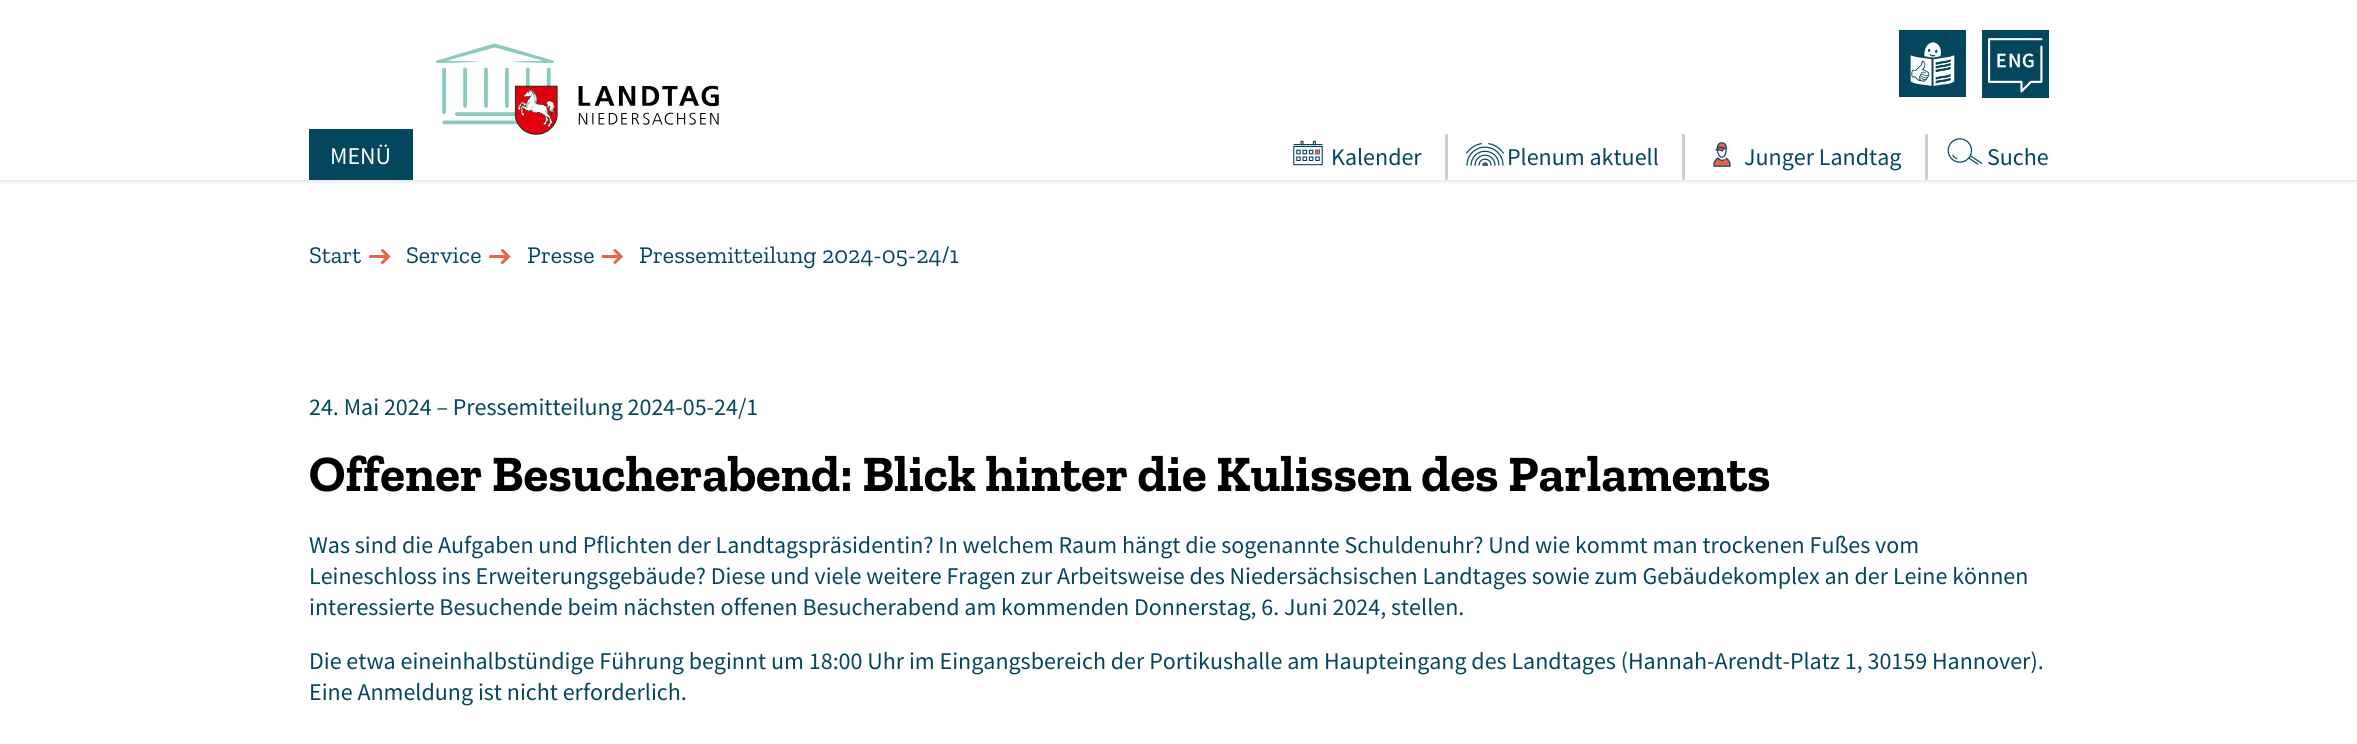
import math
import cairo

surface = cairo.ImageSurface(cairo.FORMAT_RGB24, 2357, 744)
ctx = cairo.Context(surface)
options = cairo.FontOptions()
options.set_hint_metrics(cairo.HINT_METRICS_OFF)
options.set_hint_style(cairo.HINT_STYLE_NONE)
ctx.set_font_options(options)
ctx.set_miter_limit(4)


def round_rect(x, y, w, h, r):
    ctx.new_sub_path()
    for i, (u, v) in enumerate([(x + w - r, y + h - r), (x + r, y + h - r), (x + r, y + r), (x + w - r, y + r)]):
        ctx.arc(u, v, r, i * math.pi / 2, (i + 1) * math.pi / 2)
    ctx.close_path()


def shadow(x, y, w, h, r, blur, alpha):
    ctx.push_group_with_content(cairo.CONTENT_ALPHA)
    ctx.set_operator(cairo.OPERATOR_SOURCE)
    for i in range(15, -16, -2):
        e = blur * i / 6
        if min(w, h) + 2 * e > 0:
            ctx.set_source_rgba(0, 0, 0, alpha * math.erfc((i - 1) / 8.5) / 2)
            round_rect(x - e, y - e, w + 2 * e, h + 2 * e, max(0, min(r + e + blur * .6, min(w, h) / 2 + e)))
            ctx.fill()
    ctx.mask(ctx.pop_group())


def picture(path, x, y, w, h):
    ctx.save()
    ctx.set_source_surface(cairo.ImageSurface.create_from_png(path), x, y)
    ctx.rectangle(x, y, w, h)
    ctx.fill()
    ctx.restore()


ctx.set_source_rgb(1, 1, 1)
ctx.paint()
ctx.save()
ctx.rectangle(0, 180, 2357, 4)
ctx.clip()
ctx.set_source_rgb(0, 0, 0)
shadow(0, 2, 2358, 180, 0, 2, 0.1)
ctx.restore()
picture("img1.png", 436, 43, 283, 92)
ctx.set_source_rgb(0.02, 0.275, 0.373)
ctx.rectangle(309, 129, 104, 51)
ctx.fill()
ctx.select_font_face("Source Sans Pro")
ctx.set_font_size(24)
ctx.set_source_rgb(1, 1, 1)
ctx.move_to(330, 164)
ctx.show_text("MENÜ")
picture("img2.png", 1899, 30, 67, 67)
picture("img3.png", 1982, 30, 67, 68)
picture("img4.png", 1293, 140, 30, 26)
ctx.set_source_rgb(0.02, 0.275, 0.373)
ctx.move_to(1331, 165)
ctx.show_text("Kalender")
ctx.set_source_rgb(0.773, 0.816, 0.859)
ctx.rectangle(1445, 134, 3, 46)
ctx.fill()
picture("img5.png", 1466, 143, 38, 23)
ctx.set_source_rgb(0.02, 0.275, 0.373)
ctx.move_to(1507, 165)
ctx.show_text("Plenum aktuell")
ctx.set_source_rgb(0.773, 0.816, 0.859)
ctx.rectangle(1682, 134, 3, 46)
ctx.fill()
picture("img6.png", 1713, 142, 18, 25)
ctx.set_source_rgb(0.02, 0.275, 0.373)
ctx.move_to(1744, 165)
ctx.show_text("Junger Landtag")
ctx.set_source_rgb(0.773, 0.816, 0.859)
ctx.rectangle(1925, 134, 3, 46)
ctx.fill()
picture("img7.png", 1947, 138, 36, 27)
ctx.set_source_rgb(0.02, 0.275, 0.373)
ctx.move_to(1987, 165)
ctx.show_text("Suche")
ctx.select_font_face("Zilla Slab")
ctx.move_to(309, 263)
ctx.show_text("Start")
picture("img8.png", 369, 249, 22, 16)
ctx.move_to(406, 263)
ctx.show_text("Service")
picture("img8.png", 489, 249, 22, 16)
ctx.move_to(527, 263)
ctx.show_text("Presse")
picture("img9.png", 601, 249, 22, 16)
ctx.move_to(639, 263)
ctx.show_text("Pressemitteilung 2024-05-24/1")
ctx.select_font_face("Source Sans Pro")
ctx.move_to(309, 415)
ctx.show_text("24. Mai 2024 – Pressemitteilung 2024-05-24/1")
ctx.select_font_face("Zilla Slab", cairo.FONT_SLANT_NORMAL, cairo.FONT_WEIGHT_BOLD)
ctx.set_font_size(51)
ctx.set_source_rgb(0, 0, 0)
ctx.move_to(309, 491)
ctx.show_text("Offener Besucherabend: Blick hinter die Kulissen des Parlaments")
ctx.select_font_face("Source Sans Pro")
ctx.set_font_size(24)
ctx.set_source_rgb(0.02, 0.275, 0.373)
ctx.move_to(309, 553)
ctx.show_text("Was sind die Aufgaben und Pflichten der Landtagspräsidentin? In welchem Raum hängt die sogenannte Schuldenuhr? Und wie kommt man trockenen Fußes vom")
ctx.move_to(309, 584)
ctx.show_text("Leineschloss ins Erweiterungsgebäude? Diese und viele weitere Fragen zur Arbeitsweise des Niedersächsischen Landtages sowie zum Gebäudekomplex an der Leine können")
ctx.move_to(309, 615)
ctx.show_text("interessierte Besuchende beim nächsten offenen Besucherabend am kommenden Donnerstag, 6. Juni 2024, stellen.")
ctx.move_to(309, 669)
ctx.show_text("Die etwa eineinhalbstündige Führung beginnt um 18:00 Uhr im Eingangsbereich der Portikushalle am Haupteingang des Landtages (Hannah-Arendt-Platz 1, 30159 Hannover).")
ctx.move_to(309, 700)
ctx.show_text("Eine Anmeldung ist nicht erforderlich.")
surface.write_to_png("page.png")
